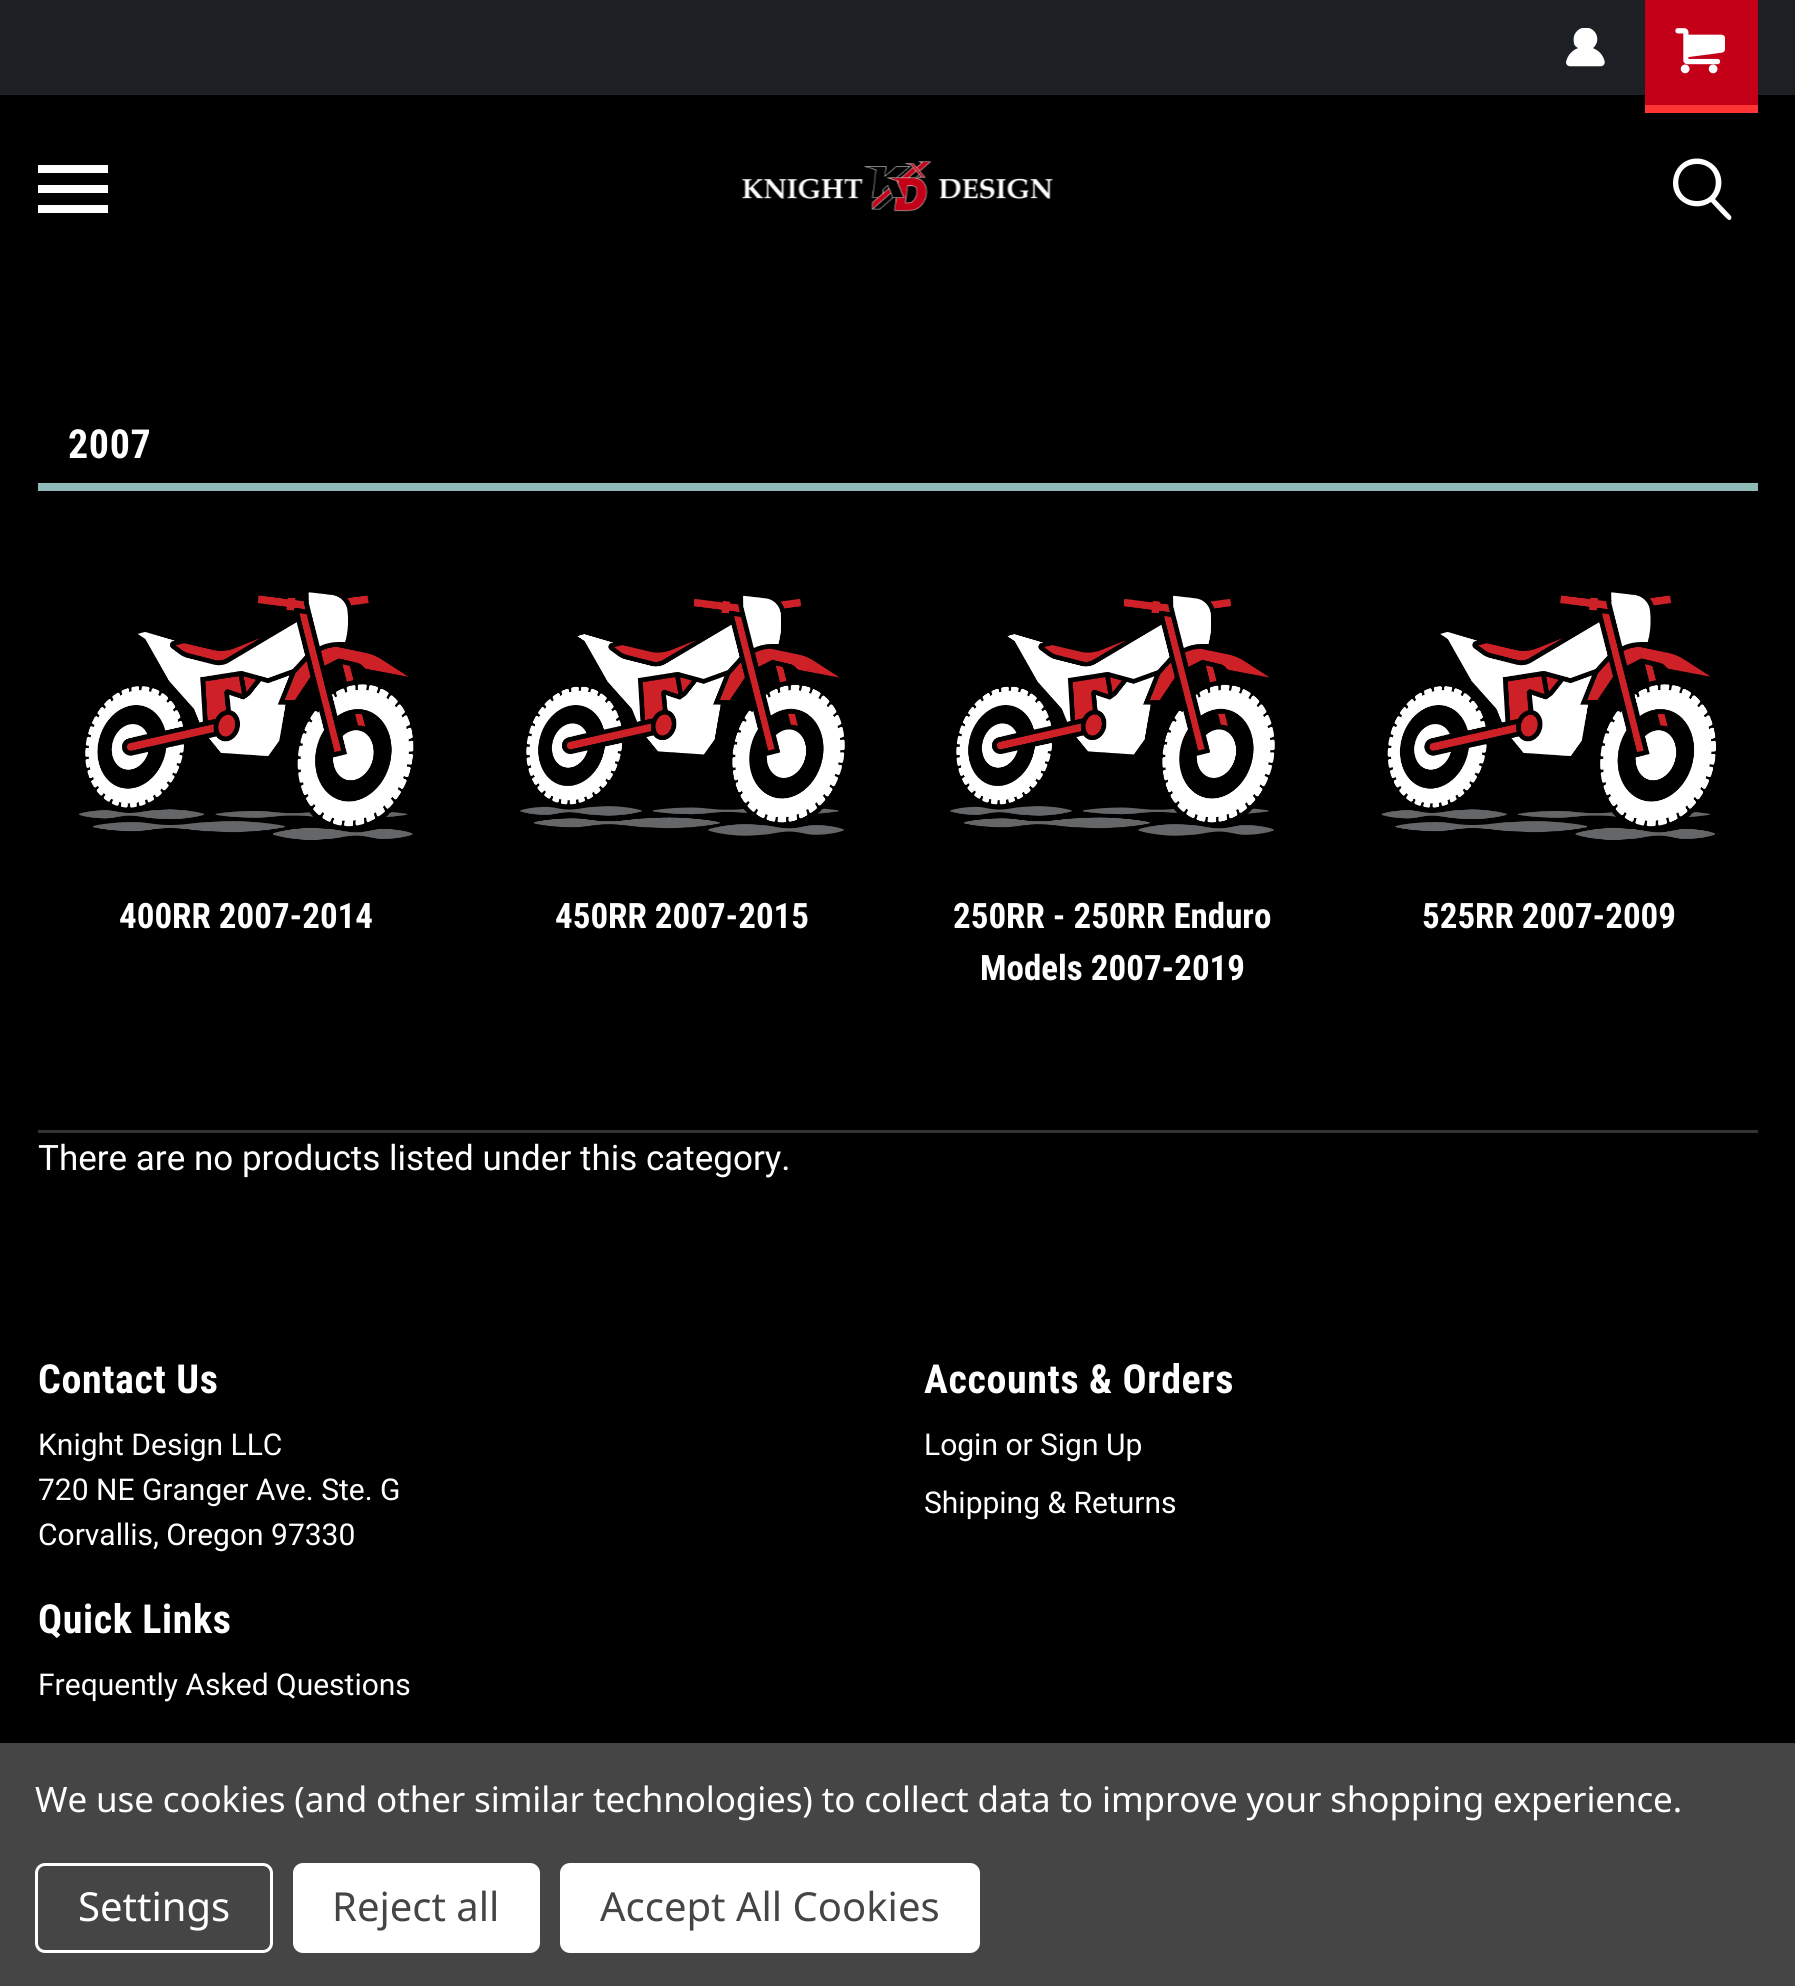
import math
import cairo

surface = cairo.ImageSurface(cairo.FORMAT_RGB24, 1795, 1986)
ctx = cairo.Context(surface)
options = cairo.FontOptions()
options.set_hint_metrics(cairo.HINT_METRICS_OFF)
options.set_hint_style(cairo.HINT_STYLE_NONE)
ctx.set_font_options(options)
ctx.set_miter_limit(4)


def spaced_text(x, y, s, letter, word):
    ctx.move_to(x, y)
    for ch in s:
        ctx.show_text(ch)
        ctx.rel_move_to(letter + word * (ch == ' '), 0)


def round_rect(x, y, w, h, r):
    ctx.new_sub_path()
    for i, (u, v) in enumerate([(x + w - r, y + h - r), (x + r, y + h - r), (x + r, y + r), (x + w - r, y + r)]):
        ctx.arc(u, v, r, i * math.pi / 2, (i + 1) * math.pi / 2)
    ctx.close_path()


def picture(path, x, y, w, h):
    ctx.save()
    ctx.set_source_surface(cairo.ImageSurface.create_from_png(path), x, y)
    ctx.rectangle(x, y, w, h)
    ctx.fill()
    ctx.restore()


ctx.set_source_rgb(0, 0, 0)
ctx.paint()
ctx.set_source_rgb(0.11, 0.122, 0.141)
ctx.rectangle(0, 0, 1795, 95)
ctx.fill()
picture("img1.png", 1566, 28, 39, 39)
ctx.set_source_rgb(0.769, 0, 0.098)
ctx.rectangle(1645, 0, 113, 105)
ctx.fill()
ctx.set_source_rgb(1, 0.208, 0.208)
ctx.rectangle(1645, 105, 113, 8)
ctx.fill()
picture("img2.png", 1675, 28, 50, 46)
ctx.set_source_rgb(1, 1, 1)
ctx.rectangle(38, 185, 70, 8)
ctx.fill()
ctx.rectangle(38, 165, 70, 8)
ctx.fill()
ctx.rectangle(38, 205, 70, 8)
ctx.fill()
picture("img3.png", 742, 161, 311, 51)
ctx.new_path()
ctx.move_to(1729, 220)
ctx.curve_to(1727, 220, 1714, 205, 1711, 202)
ctx.curve_to(1695, 213, 1672, 202, 1673, 182)
ctx.curve_to(1674, 162, 1695, 152, 1711, 163)
ctx.curve_to(1723, 171, 1725, 188, 1715, 199)
ctx.line_to(1731, 216)
ctx.curve_to(1732, 218, 1731, 220, 1729, 220)
ctx.close_path()
ctx.move_to(1697, 164)
ctx.curve_to(1672, 164, 1672, 201, 1697, 201)
ctx.curve_to(1722, 201, 1722, 164, 1697, 164)
ctx.close_path()
ctx.fill()
ctx.set_source_rgb(0.565, 0.729, 0.718)
ctx.rectangle(38, 483, 1720, 8)
ctx.fill()
ctx.select_font_face("Roboto Condensed", cairo.FONT_SLANT_NORMAL, cairo.FONT_WEIGHT_BOLD)
ctx.set_font_size(40)
ctx.set_source_rgb(1, 1, 1)
spaced_text(68, 458, "2007", 0.6, 0)
ctx.set_source_rgb(0.204, 0.204, 0.204)
ctx.rectangle(38, 1130, 1720, 3)
ctx.fill()
picture("img4.png", 79, 592, 335, 248)
ctx.set_font_size(35)
ctx.set_source_rgb(1, 1, 1)
ctx.move_to(119, 928)
ctx.show_text("400RR 2007-2014")
picture("img5.png", 520, 595, 325, 241)
ctx.move_to(555, 928)
ctx.show_text("450RR 2007-2015")
picture("img6.png", 950, 595, 325, 241)
ctx.move_to(953, 928)
ctx.show_text("250RR - 250RR Enduro")
ctx.move_to(980, 980)
ctx.show_text("Models 2007-2019")
picture("img7.png", 1381, 592, 335, 248)
ctx.move_to(1422, 928)
ctx.show_text("525RR 2007-2009")
ctx.select_font_face("Roboto")
ctx.move_to(38, 1170)
ctx.show_text("There are no products listed under this category.")
ctx.select_font_face("Roboto Condensed", cairo.FONT_SLANT_NORMAL, cairo.FONT_WEIGHT_BOLD)
ctx.set_font_size(40)
spaced_text(38, 1393, "Contact Us", 0.6, 0)
ctx.select_font_face("Roboto")
ctx.set_font_size(30)
ctx.move_to(38, 1455)
ctx.show_text("Knight Design LLC")
ctx.move_to(38, 1500)
ctx.show_text("720 NE Granger Ave. Ste. G")
ctx.move_to(38, 1545)
ctx.show_text("Corvallis, Oregon 97330")
ctx.select_font_face("Roboto Condensed", cairo.FONT_SLANT_NORMAL, cairo.FONT_WEIGHT_BOLD)
ctx.set_font_size(40)
spaced_text(924, 1393, "Accounts & Orders", 0.6, 0)
ctx.select_font_face("Roboto")
ctx.set_font_size(30)
ctx.move_to(924, 1455)
ctx.show_text("Login or")
ctx.move_to(1040, 1455)
ctx.show_text("Sign Up")
ctx.move_to(924, 1513)
ctx.show_text("Shipping & Returns")
ctx.select_font_face("Roboto Condensed", cairo.FONT_SLANT_NORMAL, cairo.FONT_WEIGHT_BOLD)
ctx.set_font_size(40)
spaced_text(38, 1633, "Quick Links", 0.6, 0)
ctx.select_font_face("Roboto")
ctx.set_font_size(30)
ctx.move_to(38, 1695)
ctx.show_text("Frequently Asked Questions")
ctx.set_source_rgb(0.271, 0.271, 0.271)
ctx.rectangle(0, 1743, 1795, 243)
ctx.fill()
ctx.select_font_face("Noto Sans")
ctx.set_font_size(35)
ctx.set_source_rgb(1, 1, 1)
spaced_text(35, 1812, "We use cookies (and other similar technologies) to collect data to improve your shopping experience.", -0.12, 0)
round_rect(36.5, 1864.5, 235, 87, 8.5)
ctx.set_line_width(3)
ctx.stroke()
ctx.set_font_size(40)
ctx.move_to(78, 1921)
ctx.show_text("Settings")
round_rect(293, 1863, 247, 90, 10)
ctx.fill()
ctx.set_source_rgb(0.271, 0.271, 0.271)
ctx.move_to(332, 1921)
ctx.show_text("Reject all")
ctx.set_source_rgb(1, 1, 1)
round_rect(560, 1863, 420, 90, 10)
ctx.fill()
ctx.set_source_rgb(0.271, 0.271, 0.271)
ctx.move_to(600, 1921)
ctx.show_text("Accept All Cookies")
surface.write_to_png("page.png")
